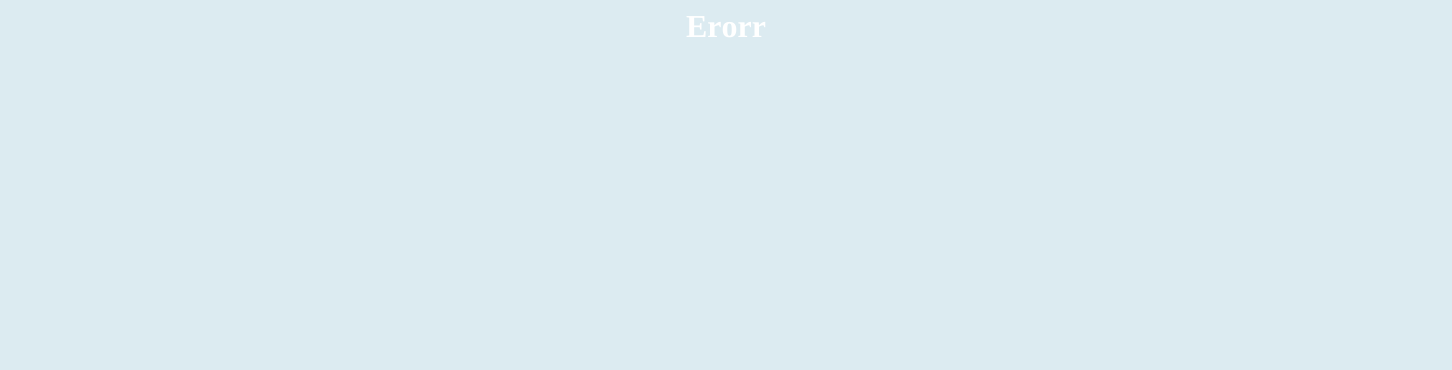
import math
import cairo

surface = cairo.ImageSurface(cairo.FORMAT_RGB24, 1452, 370)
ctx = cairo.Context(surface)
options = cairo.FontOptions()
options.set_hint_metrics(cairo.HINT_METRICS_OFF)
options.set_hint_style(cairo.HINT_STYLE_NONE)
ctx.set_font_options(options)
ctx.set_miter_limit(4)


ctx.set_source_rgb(0.863, 0.918, 0.945)
ctx.paint()
ctx.select_font_face("Liberation Serif", cairo.FONT_SLANT_NORMAL, cairo.FONT_WEIGHT_BOLD)
ctx.set_font_size(32)
ctx.set_source_rgb(1, 1, 1)
ctx.move_to(686, 37)
ctx.show_text("Erorr")
surface.write_to_png("page.png")
